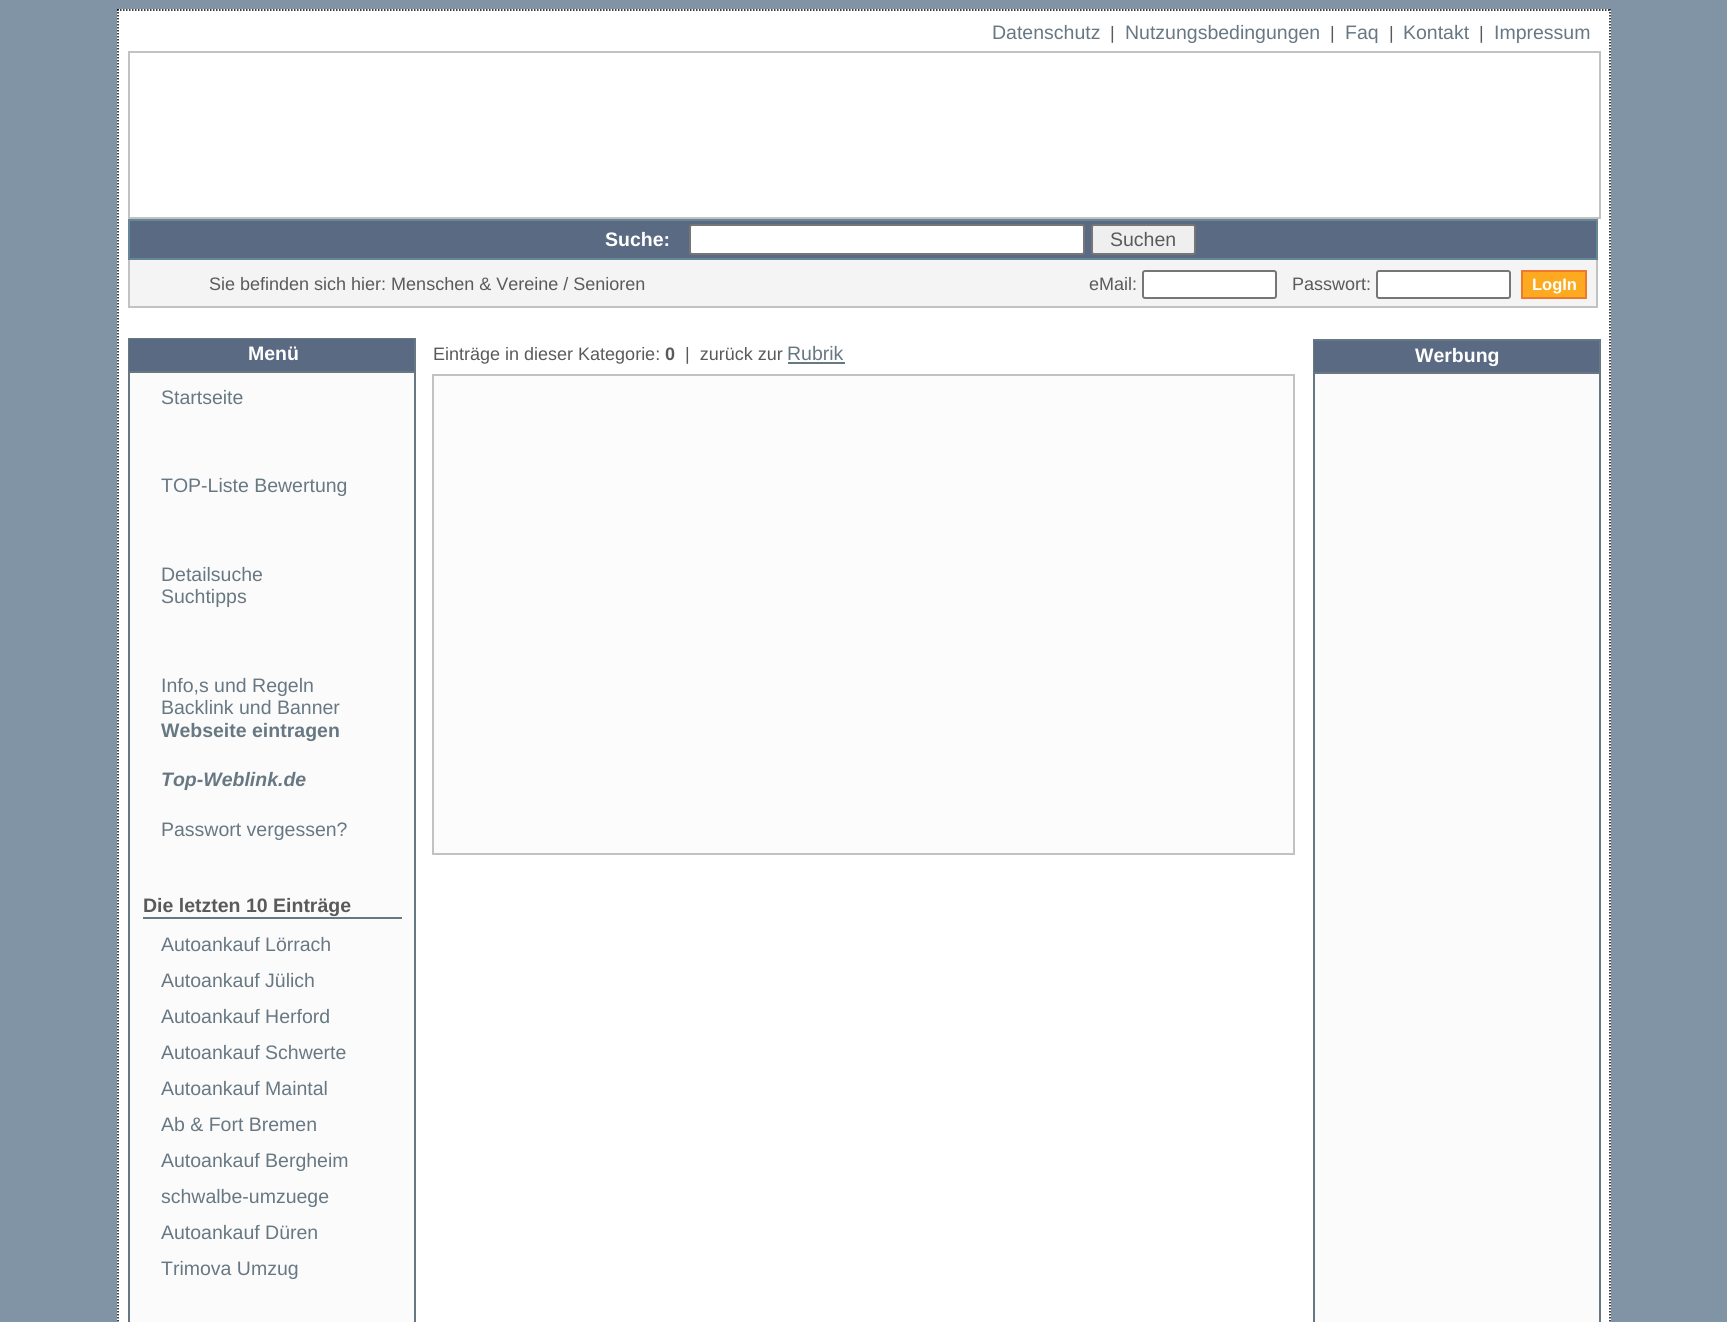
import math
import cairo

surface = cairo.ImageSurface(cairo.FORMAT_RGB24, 1727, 1322)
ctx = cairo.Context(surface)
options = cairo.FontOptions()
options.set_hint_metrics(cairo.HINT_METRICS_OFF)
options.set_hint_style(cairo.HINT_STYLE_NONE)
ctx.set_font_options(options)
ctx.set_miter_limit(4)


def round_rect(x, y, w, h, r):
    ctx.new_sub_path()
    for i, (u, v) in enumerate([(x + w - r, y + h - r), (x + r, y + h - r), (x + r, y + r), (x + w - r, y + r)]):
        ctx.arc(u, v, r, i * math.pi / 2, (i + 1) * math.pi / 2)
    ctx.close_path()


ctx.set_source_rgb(0.502, 0.58, 0.651)
ctx.paint()
ctx.set_source_rgb(1, 1, 1)
ctx.rectangle(117, 9, 1494, 1313)
ctx.fill()
ctx.new_path()
ctx.move_to(117, 10)
ctx.line_to(1611, 10)
ctx.set_source_rgb(0, 0, 0)
ctx.set_line_width(1.5)
ctx.set_dash([1.5, 1.5])
ctx.stroke()
ctx.new_path()
ctx.move_to(1610, 9)
ctx.line_to(1610, 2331)
ctx.stroke()
ctx.new_path()
ctx.move_to(118, 9)
ctx.line_to(118, 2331)
ctx.stroke()
ctx.select_font_face("Liberation Sans")
ctx.set_font_size(19.5)
ctx.set_source_rgb(0.408, 0.471, 0.514)
ctx.move_to(992, 39)
ctx.show_text("Datenschutz")
ctx.set_font_size(18)
ctx.set_source_rgb(0.353, 0.353, 0.353)
ctx.move_to(1110, 39)
ctx.show_text("|")
ctx.set_font_size(19.5)
ctx.set_source_rgb(0.408, 0.471, 0.514)
ctx.move_to(1125, 39)
ctx.show_text("Nutzungsbedingungen")
ctx.set_font_size(18)
ctx.set_source_rgb(0.353, 0.353, 0.353)
ctx.move_to(1330, 39)
ctx.show_text("|")
ctx.set_font_size(19.5)
ctx.set_source_rgb(0.408, 0.471, 0.514)
ctx.move_to(1345, 39)
ctx.show_text("Faq")
ctx.set_font_size(18)
ctx.set_source_rgb(0.353, 0.353, 0.353)
ctx.move_to(1389, 39)
ctx.show_text("|")
ctx.set_font_size(19.5)
ctx.set_source_rgb(0.408, 0.471, 0.514)
ctx.move_to(1403, 39)
ctx.show_text("Kontakt")
ctx.set_font_size(18)
ctx.set_source_rgb(0.353, 0.353, 0.353)
ctx.move_to(1479, 39)
ctx.show_text("|")
ctx.set_font_size(19.5)
ctx.set_source_rgb(0.408, 0.471, 0.514)
ctx.move_to(1494, 39)
ctx.show_text("Impressum")
ctx.rectangle(129, 52, 1471, 166)
ctx.set_source_rgb(0.761, 0.761, 0.761)
ctx.set_line_width(2)
ctx.set_dash([])
ctx.stroke()
ctx.set_source_rgb(0.353, 0.416, 0.514)
ctx.rectangle(129, 220, 1468, 39)
ctx.fill_preserve()
ctx.set_source_rgb(0.396, 0.529, 0.588)
ctx.stroke()
ctx.select_font_face("Liberation Sans", cairo.FONT_SLANT_NORMAL, cairo.FONT_WEIGHT_BOLD)
ctx.set_source_rgb(1, 1, 1)
ctx.move_to(605, 246)
ctx.show_text("Suche:")
round_rect(690, 225, 394, 29, 2)
ctx.fill_preserve()
ctx.set_source_rgb(0.463, 0.463, 0.463)
ctx.stroke()
ctx.set_source_rgb(0.937, 0.937, 0.937)
round_rect(1092, 225, 103, 29, 2)
ctx.fill_preserve()
ctx.set_source_rgb(0.463, 0.463, 0.463)
ctx.stroke()
ctx.select_font_face("Liberation Sans")
ctx.set_source_rgb(0.353, 0.353, 0.353)
ctx.move_to(1110, 246)
ctx.show_text("Suchen")
ctx.set_source_rgb(0.957, 0.957, 0.957)
ctx.rectangle(130, 260, 1466, 46)
ctx.fill()
ctx.set_source_rgb(0.761, 0.761, 0.761)
ctx.rectangle(1596, 260, 2, 48)
ctx.fill()
ctx.rectangle(128, 306, 1470, 2)
ctx.fill()
ctx.rectangle(128, 260, 2, 48)
ctx.fill()
ctx.set_font_size(18)
ctx.set_source_rgb(0.353, 0.353, 0.353)
ctx.move_to(209, 290)
ctx.show_text("Sie befinden sich hier: Menschen & Vereine / Senioren")
ctx.move_to(1089, 290)
ctx.show_text("eMail:")
ctx.set_source_rgb(1, 1, 1)
round_rect(1143, 271, 133, 27, 2)
ctx.fill_preserve()
ctx.set_source_rgb(0.463, 0.463, 0.463)
ctx.stroke()
ctx.set_source_rgb(0.353, 0.353, 0.353)
ctx.move_to(1292, 290)
ctx.show_text("Passwort:")
ctx.set_source_rgb(1, 1, 1)
round_rect(1377, 271, 133, 27, 2)
ctx.fill_preserve()
ctx.set_source_rgb(0.463, 0.463, 0.463)
ctx.stroke()
ctx.set_source_rgb(0.992, 0.667, 0.125)
ctx.rectangle(1522, 271, 64, 27)
ctx.fill_preserve()
ctx.set_source_rgb(0.929, 0.475, 0.18)
ctx.stroke()
ctx.select_font_face("Liberation Sans", cairo.FONT_SLANT_NORMAL, cairo.FONT_WEIGHT_BOLD)
ctx.set_font_size(16.5)
ctx.set_source_rgb(1, 1, 1)
ctx.move_to(1532, 290)
ctx.show_text("LogIn")
ctx.set_source_rgb(0.984, 0.984, 0.984)
ctx.rectangle(130, 373, 284, 949)
ctx.fill()
ctx.rectangle(129, 339, 286, 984)
ctx.set_source_rgb(0.408, 0.471, 0.514)
ctx.stroke()
ctx.set_source_rgb(0.353, 0.416, 0.514)
ctx.rectangle(129, 339, 285, 32)
ctx.fill()
ctx.set_source_rgb(0.408, 0.471, 0.514)
ctx.rectangle(129, 371, 285, 2)
ctx.fill()
ctx.set_font_size(19.5)
ctx.set_source_rgb(1, 1, 1)
ctx.move_to(248, 360)
ctx.show_text("Menü")
ctx.select_font_face("Liberation Sans")
ctx.set_source_rgb(0.408, 0.471, 0.514)
ctx.move_to(161, 404)
ctx.show_text("Startseite")
ctx.move_to(161, 492)
ctx.show_text("TOP-Liste Bewertung")
ctx.move_to(161, 581)
ctx.show_text("Detailsuche")
ctx.move_to(161, 603)
ctx.show_text("Suchtipps")
ctx.move_to(161, 692)
ctx.show_text("Info,s und Regeln")
ctx.move_to(161, 714)
ctx.show_text("Backlink und Banner")
ctx.select_font_face("Liberation Sans", cairo.FONT_SLANT_NORMAL, cairo.FONT_WEIGHT_BOLD)
ctx.move_to(161, 737)
ctx.show_text("Webseite eintragen")
ctx.select_font_face("Liberation Sans", cairo.FONT_SLANT_ITALIC, cairo.FONT_WEIGHT_BOLD)
ctx.move_to(161, 786)
ctx.show_text("Top-Weblink.de")
ctx.select_font_face("Liberation Sans")
ctx.move_to(161, 836)
ctx.show_text("Passwort vergessen?")
ctx.select_font_face("Liberation Sans", cairo.FONT_SLANT_NORMAL, cairo.FONT_WEIGHT_BOLD)
ctx.set_source_rgb(0.353, 0.353, 0.353)
ctx.move_to(143, 912)
ctx.show_text("Die letzten 10 Einträge")
ctx.set_source_rgb(0.408, 0.471, 0.514)
ctx.rectangle(143, 917, 259, 2)
ctx.fill()
ctx.select_font_face("Liberation Sans")
ctx.move_to(161, 951)
ctx.show_text("Autoankauf Lörrach")
ctx.move_to(161, 987)
ctx.show_text("Autoankauf Jülich")
ctx.move_to(161, 1023)
ctx.show_text("Autoankauf Herford")
ctx.move_to(161, 1059)
ctx.show_text("Autoankauf Schwerte")
ctx.move_to(161, 1095)
ctx.show_text("Autoankauf Maintal")
ctx.move_to(161, 1131)
ctx.show_text("Ab & Fort Bremen")
ctx.move_to(161, 1167)
ctx.show_text("Autoankauf Bergheim")
ctx.move_to(161, 1203)
ctx.show_text("schwalbe-umzuege")
ctx.move_to(161, 1239)
ctx.show_text("Autoankauf Düren")
ctx.move_to(161, 1275)
ctx.show_text("Trimova Umzug")
ctx.set_font_size(18)
ctx.set_source_rgb(0.353, 0.353, 0.353)
ctx.move_to(433, 360)
ctx.show_text("Einträge in dieser Kategorie:")
ctx.select_font_face("Liberation Sans", cairo.FONT_SLANT_NORMAL, cairo.FONT_WEIGHT_BOLD)
ctx.move_to(665, 360)
ctx.show_text("0")
ctx.select_font_face("Liberation Sans")
ctx.move_to(685, 360)
ctx.show_text("|  zurück zur")
ctx.set_font_size(19.5)
ctx.set_source_rgb(0.408, 0.471, 0.514)
ctx.move_to(787, 360)
ctx.show_text("Rubrik")
ctx.rectangle(788, 362, 57, 2)
ctx.fill()
ctx.set_source_rgb(0.988, 0.988, 0.988)
ctx.rectangle(433, 375, 861, 479)
ctx.fill_preserve()
ctx.set_source_rgb(0.761, 0.761, 0.761)
ctx.stroke()
ctx.set_source_rgb(0.984, 0.984, 0.984)
ctx.rectangle(1315, 374, 284, 948)
ctx.fill()
ctx.rectangle(1314, 340, 286, 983)
ctx.set_source_rgb(0.408, 0.471, 0.514)
ctx.stroke()
ctx.set_source_rgb(0.353, 0.416, 0.514)
ctx.rectangle(1314, 341, 285, 31)
ctx.fill()
ctx.set_source_rgb(0.408, 0.471, 0.514)
ctx.rectangle(1314, 372, 285, 2)
ctx.fill()
ctx.select_font_face("Liberation Sans", cairo.FONT_SLANT_NORMAL, cairo.FONT_WEIGHT_BOLD)
ctx.set_source_rgb(1, 1, 1)
ctx.move_to(1415, 362)
ctx.show_text("Werbung")
surface.write_to_png("page.png")
